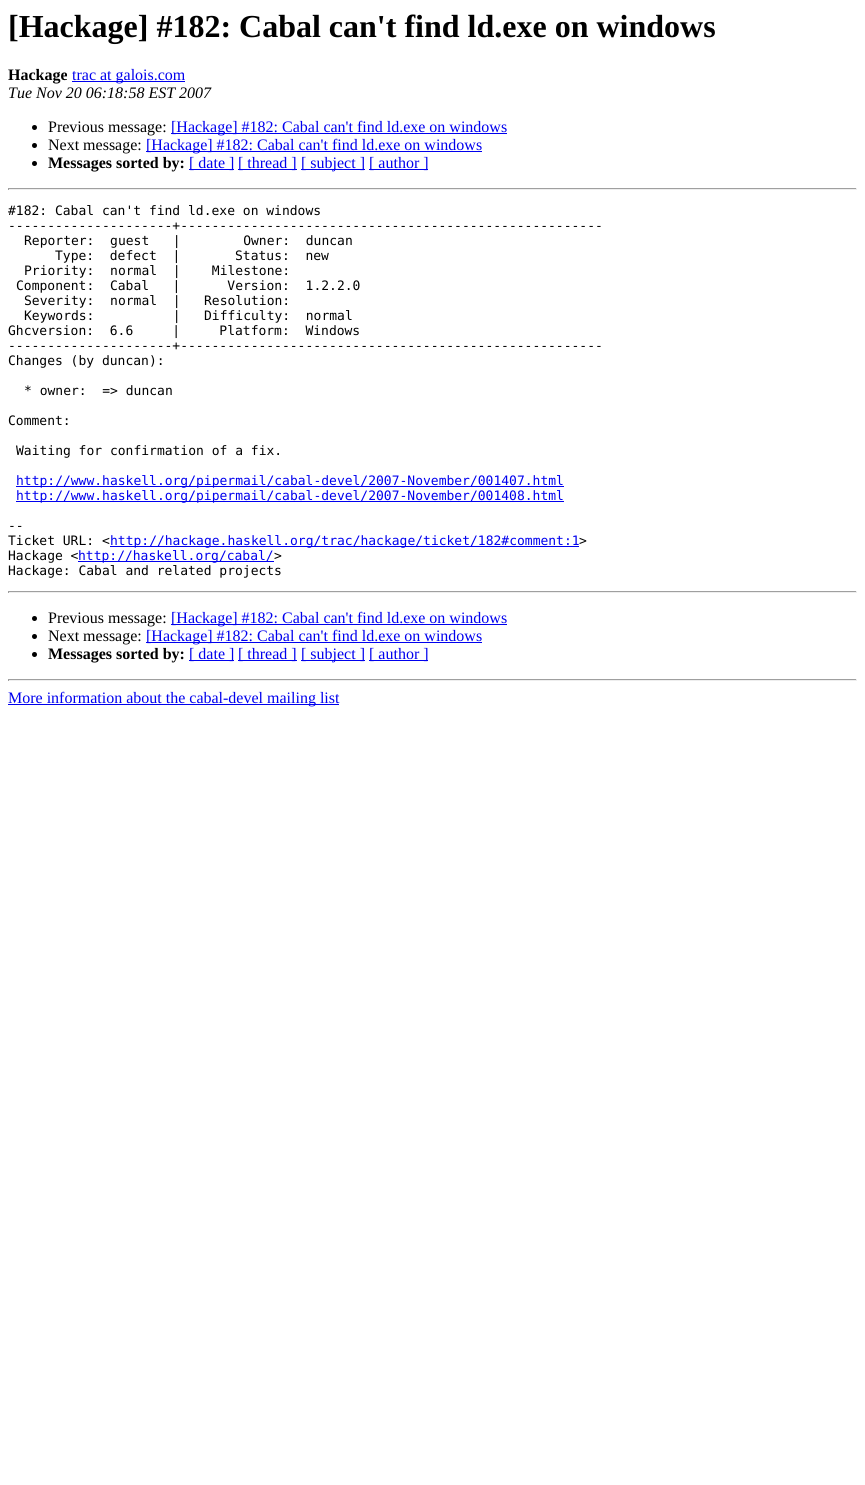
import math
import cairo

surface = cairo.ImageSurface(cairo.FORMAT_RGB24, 865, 1485)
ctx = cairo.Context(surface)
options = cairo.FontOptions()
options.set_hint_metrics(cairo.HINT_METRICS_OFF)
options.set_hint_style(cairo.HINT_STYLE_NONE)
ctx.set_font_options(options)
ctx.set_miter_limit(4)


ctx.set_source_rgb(1, 1, 1)
ctx.paint()
ctx.select_font_face("Liberation Serif", cairo.FONT_SLANT_NORMAL, cairo.FONT_WEIGHT_BOLD)
ctx.set_font_size(32)
ctx.set_source_rgb(0, 0, 0)
ctx.move_to(8, 37)
ctx.show_text("[Hackage] #182: Cabal can't find ld.exe on windows")
ctx.set_font_size(16)
ctx.move_to(8, 80)
ctx.show_text("Hackage")
ctx.set_source_rgb(0, 0, 0.933)
ctx.rectangle(72, 81, 113, 1)
ctx.fill()
ctx.select_font_face("Liberation Serif")
ctx.move_to(72, 80)
ctx.show_text("trac at galois.com")
ctx.select_font_face("Liberation Serif", cairo.FONT_SLANT_ITALIC)
ctx.set_source_rgb(0, 0, 0)
ctx.move_to(8, 98)
ctx.show_text("Tue Nov 20 06:18:58 EST 2007")
ctx.new_path()
ctx.arc(34.5, 127.5, 2.5, 0, 2 * math.pi)
ctx.fill()
ctx.select_font_face("Liberation Serif")
ctx.move_to(48, 132)
ctx.show_text("Previous message:")
ctx.set_source_rgb(0, 0, 0.933)
ctx.rectangle(171, 133, 336, 1)
ctx.fill()
ctx.move_to(171, 132)
ctx.show_text("[Hackage] #182: Cabal can't find ld.exe on windows")
ctx.set_source_rgb(0, 0, 0)
ctx.new_path()
ctx.arc(34.5, 145.5, 2.5, 0, 2 * math.pi)
ctx.fill()
ctx.move_to(48, 150)
ctx.show_text("Next message:")
ctx.set_source_rgb(0, 0, 0.933)
ctx.rectangle(146, 151, 336, 1)
ctx.fill()
ctx.move_to(146, 150)
ctx.show_text("[Hackage] #182: Cabal can't find ld.exe on windows")
ctx.set_source_rgb(0, 0, 0)
ctx.new_path()
ctx.arc(34.5, 163.5, 2.5, 0, 2 * math.pi)
ctx.fill()
ctx.select_font_face("Liberation Serif", cairo.FONT_SLANT_NORMAL, cairo.FONT_WEIGHT_BOLD)
ctx.move_to(48, 168)
ctx.show_text("Messages sorted by:")
ctx.set_source_rgb(0, 0, 0.933)
ctx.rectangle(189, 169, 45, 1)
ctx.fill()
ctx.select_font_face("Liberation Serif")
ctx.move_to(189, 168)
ctx.show_text("[ date ]")
ctx.rectangle(238, 169, 59, 1)
ctx.fill()
ctx.move_to(238, 168)
ctx.show_text("[ thread ]")
ctx.rectangle(301, 169, 64, 1)
ctx.fill()
ctx.move_to(301, 168)
ctx.show_text("[ subject ]")
ctx.rectangle(369, 169, 59, 1)
ctx.fill()
ctx.move_to(369, 168)
ctx.show_text("[ author ]")
ctx.set_source_rgb(0.624, 0.624, 0.624)
ctx.rectangle(8, 188, 849, 1)
ctx.fill()
ctx.set_source_rgb(0.933, 0.933, 0.933)
ctx.rectangle(856, 188, 1, 2)
ctx.fill()
ctx.rectangle(8, 189, 849, 1)
ctx.fill()
ctx.set_source_rgb(0.624, 0.624, 0.624)
ctx.rectangle(8, 188, 1, 2)
ctx.fill()
ctx.select_font_face("DejaVu Sans Mono")
ctx.set_font_size(13)
ctx.set_source_rgb(0, 0, 0)
ctx.move_to(8, 215)
ctx.show_text("#182: Cabal can't find ld.exe on windows")
ctx.move_to(8, 230)
ctx.show_text("---------------------+------------------------------------------------------")
ctx.move_to(24, 245)
ctx.show_text("Reporter:  guest   |        Owner:  duncan")
ctx.move_to(55, 260)
ctx.show_text("Type:  defect  |       Status:  new")
ctx.move_to(24, 275)
ctx.show_text("Priority:  normal  |    Milestone:")
ctx.move_to(16, 290)
ctx.show_text("Component:  Cabal   |      Version:  1.2.2.0")
ctx.move_to(24, 305)
ctx.show_text("Severity:  normal  |   Resolution:")
ctx.move_to(24, 320)
ctx.show_text("Keywords:          |   Difficulty:  normal")
ctx.move_to(8, 335)
ctx.show_text("Ghcversion:  6.6     |     Platform:  Windows")
ctx.move_to(8, 350)
ctx.show_text("---------------------+------------------------------------------------------")
ctx.move_to(8, 365)
ctx.show_text("Changes (by duncan):")
ctx.move_to(24, 395)
ctx.show_text("* owner:  => duncan")
ctx.move_to(8, 425)
ctx.show_text("Comment:")
ctx.move_to(16, 455)
ctx.show_text("Waiting for confirmation of a fix.")
ctx.set_source_rgb(0, 0, 0.933)
ctx.rectangle(16, 486, 548, 1)
ctx.fill()
ctx.move_to(16, 485)
ctx.show_text("http://www.haskell.org/pipermail/cabal-devel/2007-November/001407.html")
ctx.rectangle(16, 501, 548, 1)
ctx.fill()
ctx.move_to(16, 500)
ctx.show_text("http://www.haskell.org/pipermail/cabal-devel/2007-November/001408.html")
ctx.set_source_rgb(0, 0, 0)
ctx.move_to(8, 530)
ctx.show_text("--")
ctx.move_to(8, 545)
ctx.show_text("Ticket URL: <")
ctx.set_source_rgb(0, 0, 0.933)
ctx.rectangle(110, 546, 469, 1)
ctx.fill()
ctx.move_to(110, 545)
ctx.show_text("http://hackage.haskell.org/trac/hackage/ticket/182#comment:1")
ctx.set_source_rgb(0, 0, 0)
ctx.move_to(579, 545)
ctx.show_text(">")
ctx.move_to(8, 560)
ctx.show_text("Hackage <")
ctx.set_source_rgb(0, 0, 0.933)
ctx.rectangle(78, 561, 196, 1)
ctx.fill()
ctx.move_to(78, 560)
ctx.show_text("http://haskell.org/cabal/")
ctx.set_source_rgb(0, 0, 0)
ctx.move_to(274, 560)
ctx.show_text(">")
ctx.move_to(8, 575)
ctx.show_text("Hackage: Cabal and related projects")
ctx.set_source_rgb(0.624, 0.624, 0.624)
ctx.rectangle(8, 591, 849, 1)
ctx.fill()
ctx.set_source_rgb(0.933, 0.933, 0.933)
ctx.rectangle(856, 591, 1, 2)
ctx.fill()
ctx.rectangle(8, 592, 849, 1)
ctx.fill()
ctx.set_source_rgb(0.624, 0.624, 0.624)
ctx.rectangle(8, 591, 1, 2)
ctx.fill()
ctx.set_source_rgb(0, 0, 0)
ctx.arc(34.5, 618.5, 2.5, 0, 2 * math.pi)
ctx.fill()
ctx.select_font_face("Liberation Serif")
ctx.set_font_size(16)
ctx.move_to(48, 623)
ctx.show_text("Previous message:")
ctx.set_source_rgb(0, 0, 0.933)
ctx.rectangle(171, 624, 336, 1)
ctx.fill()
ctx.move_to(171, 623)
ctx.show_text("[Hackage] #182: Cabal can't find ld.exe on windows")
ctx.set_source_rgb(0, 0, 0)
ctx.new_path()
ctx.arc(34.5, 636.5, 2.5, 0, 2 * math.pi)
ctx.fill()
ctx.move_to(48, 641)
ctx.show_text("Next message:")
ctx.set_source_rgb(0, 0, 0.933)
ctx.rectangle(146, 642, 336, 1)
ctx.fill()
ctx.move_to(146, 641)
ctx.show_text("[Hackage] #182: Cabal can't find ld.exe on windows")
ctx.set_source_rgb(0, 0, 0)
ctx.new_path()
ctx.arc(34.5, 654.5, 2.5, 0, 2 * math.pi)
ctx.fill()
ctx.select_font_face("Liberation Serif", cairo.FONT_SLANT_NORMAL, cairo.FONT_WEIGHT_BOLD)
ctx.move_to(48, 659)
ctx.show_text("Messages sorted by:")
ctx.set_source_rgb(0, 0, 0.933)
ctx.rectangle(189, 660, 45, 1)
ctx.fill()
ctx.select_font_face("Liberation Serif")
ctx.move_to(189, 659)
ctx.show_text("[ date ]")
ctx.rectangle(238, 660, 59, 1)
ctx.fill()
ctx.move_to(238, 659)
ctx.show_text("[ thread ]")
ctx.rectangle(301, 660, 64, 1)
ctx.fill()
ctx.move_to(301, 659)
ctx.show_text("[ subject ]")
ctx.rectangle(369, 660, 59, 1)
ctx.fill()
ctx.move_to(369, 659)
ctx.show_text("[ author ]")
ctx.set_source_rgb(0.624, 0.624, 0.624)
ctx.rectangle(8, 679, 849, 1)
ctx.fill()
ctx.set_source_rgb(0.933, 0.933, 0.933)
ctx.rectangle(856, 679, 1, 2)
ctx.fill()
ctx.rectangle(8, 680, 849, 1)
ctx.fill()
ctx.set_source_rgb(0.624, 0.624, 0.624)
ctx.rectangle(8, 679, 1, 2)
ctx.fill()
ctx.set_source_rgb(0, 0, 0.933)
ctx.rectangle(8, 704, 331, 1)
ctx.fill()
ctx.move_to(8, 703)
ctx.show_text("More information about the cabal-devel mailing list")
surface.write_to_png("page.png")
